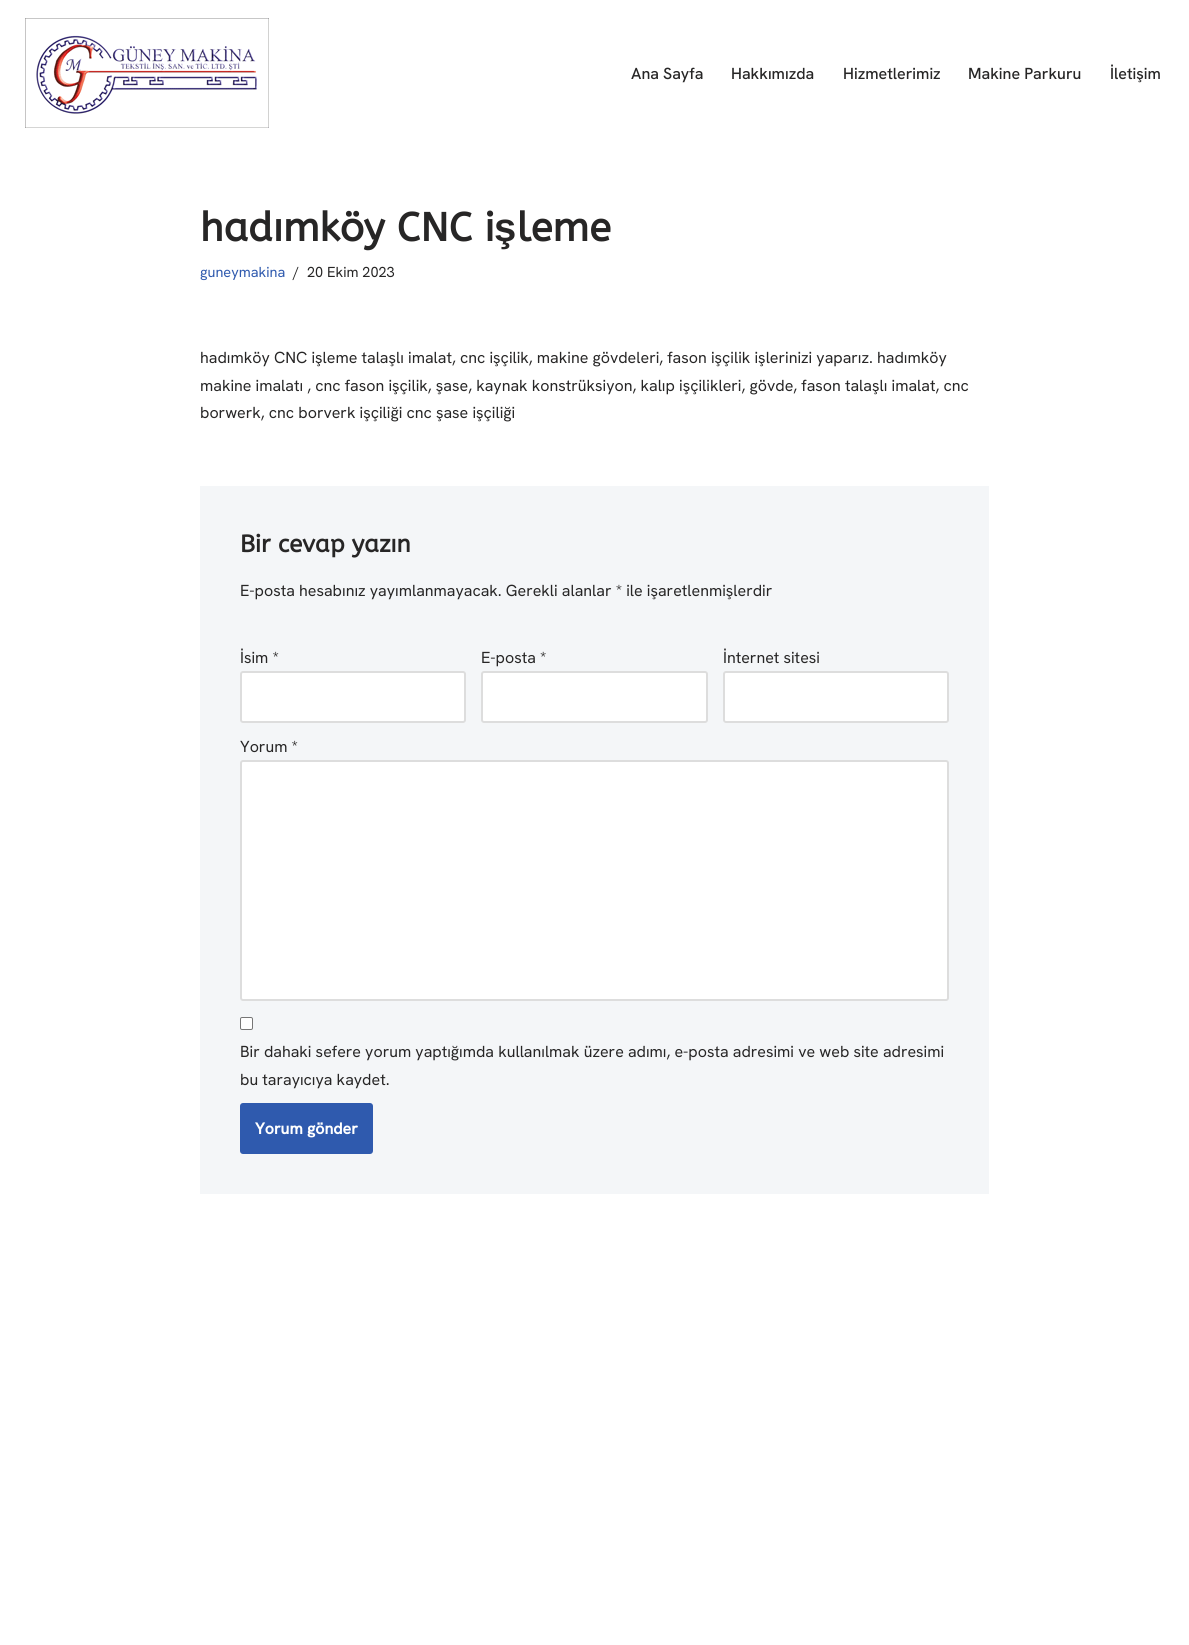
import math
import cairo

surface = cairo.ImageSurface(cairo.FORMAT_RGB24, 1189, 1645)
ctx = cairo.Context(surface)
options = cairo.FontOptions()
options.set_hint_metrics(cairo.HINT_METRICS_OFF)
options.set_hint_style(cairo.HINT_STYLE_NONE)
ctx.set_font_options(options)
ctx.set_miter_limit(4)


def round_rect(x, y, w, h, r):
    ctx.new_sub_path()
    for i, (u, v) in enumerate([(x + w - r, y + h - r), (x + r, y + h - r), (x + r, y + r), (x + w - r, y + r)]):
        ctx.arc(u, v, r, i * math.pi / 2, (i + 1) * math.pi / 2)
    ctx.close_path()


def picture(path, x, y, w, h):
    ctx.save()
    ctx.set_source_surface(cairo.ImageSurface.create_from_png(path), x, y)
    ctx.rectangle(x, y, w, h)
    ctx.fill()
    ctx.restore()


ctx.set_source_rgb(1, 1, 1)
ctx.paint()
picture("img1.png", 25, 18, 244, 110)
ctx.select_font_face("Hanken Grotesk Medium")
ctx.set_font_size(16)
ctx.set_source_rgb(0.153, 0.149, 0.149)
ctx.move_to(631, 79)
ctx.show_text("Ana Sayfa")
ctx.move_to(731, 79)
ctx.show_text("Hakkımızda")
ctx.move_to(843, 79)
ctx.show_text("Hizmetlerimiz")
ctx.move_to(968, 79)
ctx.show_text("Makine Parkuru")
ctx.move_to(1110, 79)
ctx.show_text("İletişim")
ctx.select_font_face("ABeeZee", cairo.FONT_SLANT_NORMAL, cairo.FONT_WEIGHT_BOLD)
ctx.set_font_size(40)
ctx.move_to(200, 241)
ctx.show_text("hadımköy CNC i")
ctx.select_font_face("Liberation Sans", cairo.FONT_SLANT_NORMAL, cairo.FONT_WEIGHT_BOLD)
ctx.move_to(494, 241)
ctx.show_text("ş")
ctx.select_font_face("ABeeZee", cairo.FONT_SLANT_NORMAL, cairo.FONT_WEIGHT_BOLD)
ctx.move_to(517, 241)
ctx.show_text("leme")
ctx.select_font_face("Hanken Grotesk")
ctx.set_font_size(14.5)
ctx.set_source_rgb(0.184, 0.353, 0.682)
ctx.move_to(200, 277)
ctx.show_text("guneymakina")
ctx.set_source_rgb(0.153, 0.149, 0.149)
ctx.move_to(293, 277)
ctx.show_text("/")
ctx.move_to(307, 277)
ctx.show_text("20 Ekim 2023")
ctx.set_font_size(16)
ctx.move_to(200, 363)
ctx.show_text("hadımköy CNC işleme talaşlı imalat, cnc işçilik, makine gövdeleri, fason işçilik işlerinizi yaparız. hadımköy")
ctx.move_to(200, 391)
ctx.show_text("makine imalatı , cnc fason işçilik, şase, kaynak konstrüksiyon, kalıp işçilikleri, gövde, fason talaşlı imalat, cnc")
ctx.move_to(200, 418)
ctx.show_text("borwerk, cnc borverk işçiliği cnc şase işçiliği")
ctx.set_source_rgb(0.957, 0.961, 0.969)
ctx.rectangle(200, 486, 789, 708)
ctx.fill()
ctx.select_font_face("ABeeZee", cairo.FONT_SLANT_NORMAL, cairo.FONT_WEIGHT_BOLD)
ctx.set_font_size(24)
ctx.set_source_rgb(0.153, 0.149, 0.149)
ctx.move_to(240, 552)
ctx.show_text("Bir cevap yazın")
ctx.select_font_face("Hanken Grotesk")
ctx.set_font_size(16)
ctx.move_to(240, 596)
ctx.show_text("E-posta hesabınız yayımlanmayacak. Gerekli alanlar * ile işaretlenmişlerdir")
ctx.move_to(240, 663)
ctx.show_text("İsim *")
ctx.set_source_rgb(1, 1, 1)
round_rect(241, 672, 224, 50, 2)
ctx.fill_preserve()
ctx.set_source_rgb(0.867, 0.867, 0.867)
ctx.stroke()
ctx.set_source_rgb(0.153, 0.149, 0.149)
ctx.move_to(481, 663)
ctx.show_text("E-posta *")
ctx.set_source_rgb(1, 1, 1)
round_rect(482, 672, 225, 50, 2)
ctx.fill_preserve()
ctx.set_source_rgb(0.867, 0.867, 0.867)
ctx.stroke()
ctx.set_source_rgb(0.153, 0.149, 0.149)
ctx.move_to(723, 663)
ctx.show_text("İnternet sitesi")
ctx.set_source_rgb(1, 1, 1)
round_rect(724, 672, 224, 50, 2)
ctx.fill_preserve()
ctx.set_source_rgb(0.867, 0.867, 0.867)
ctx.stroke()
ctx.set_source_rgb(0.153, 0.149, 0.149)
ctx.move_to(240, 752)
ctx.show_text("Yorum *")
ctx.set_source_rgb(1, 1, 1)
round_rect(241, 761, 707, 239, 2)
ctx.fill_preserve()
ctx.set_source_rgb(0.867, 0.867, 0.867)
ctx.stroke()
ctx.set_source_rgb(1, 1, 1)
round_rect(240.5, 1017.5, 12, 12, 1.5)
ctx.fill_preserve()
ctx.set_source_rgb(0.463, 0.463, 0.463)
ctx.set_line_width(1)
ctx.stroke()
ctx.set_source_rgb(0.153, 0.149, 0.149)
ctx.move_to(240, 1057)
ctx.show_text("Bir dahaki sefere yorum yaptığımda kullanılmak üzere adımı, e-posta adresimi ve web site adresimi")
ctx.move_to(240, 1085)
ctx.show_text("bu tarayıcıya kaydet.")
ctx.set_source_rgb(0.184, 0.353, 0.682)
round_rect(240, 1103, 133, 51, 3)
ctx.fill()
ctx.select_font_face("Hanken Grotesk", cairo.FONT_SLANT_NORMAL, cairo.FONT_WEIGHT_BOLD)
ctx.set_source_rgb(1, 1, 1)
ctx.move_to(255, 1134)
ctx.show_text("Yorum gönder")
surface.write_to_png("page.png")
